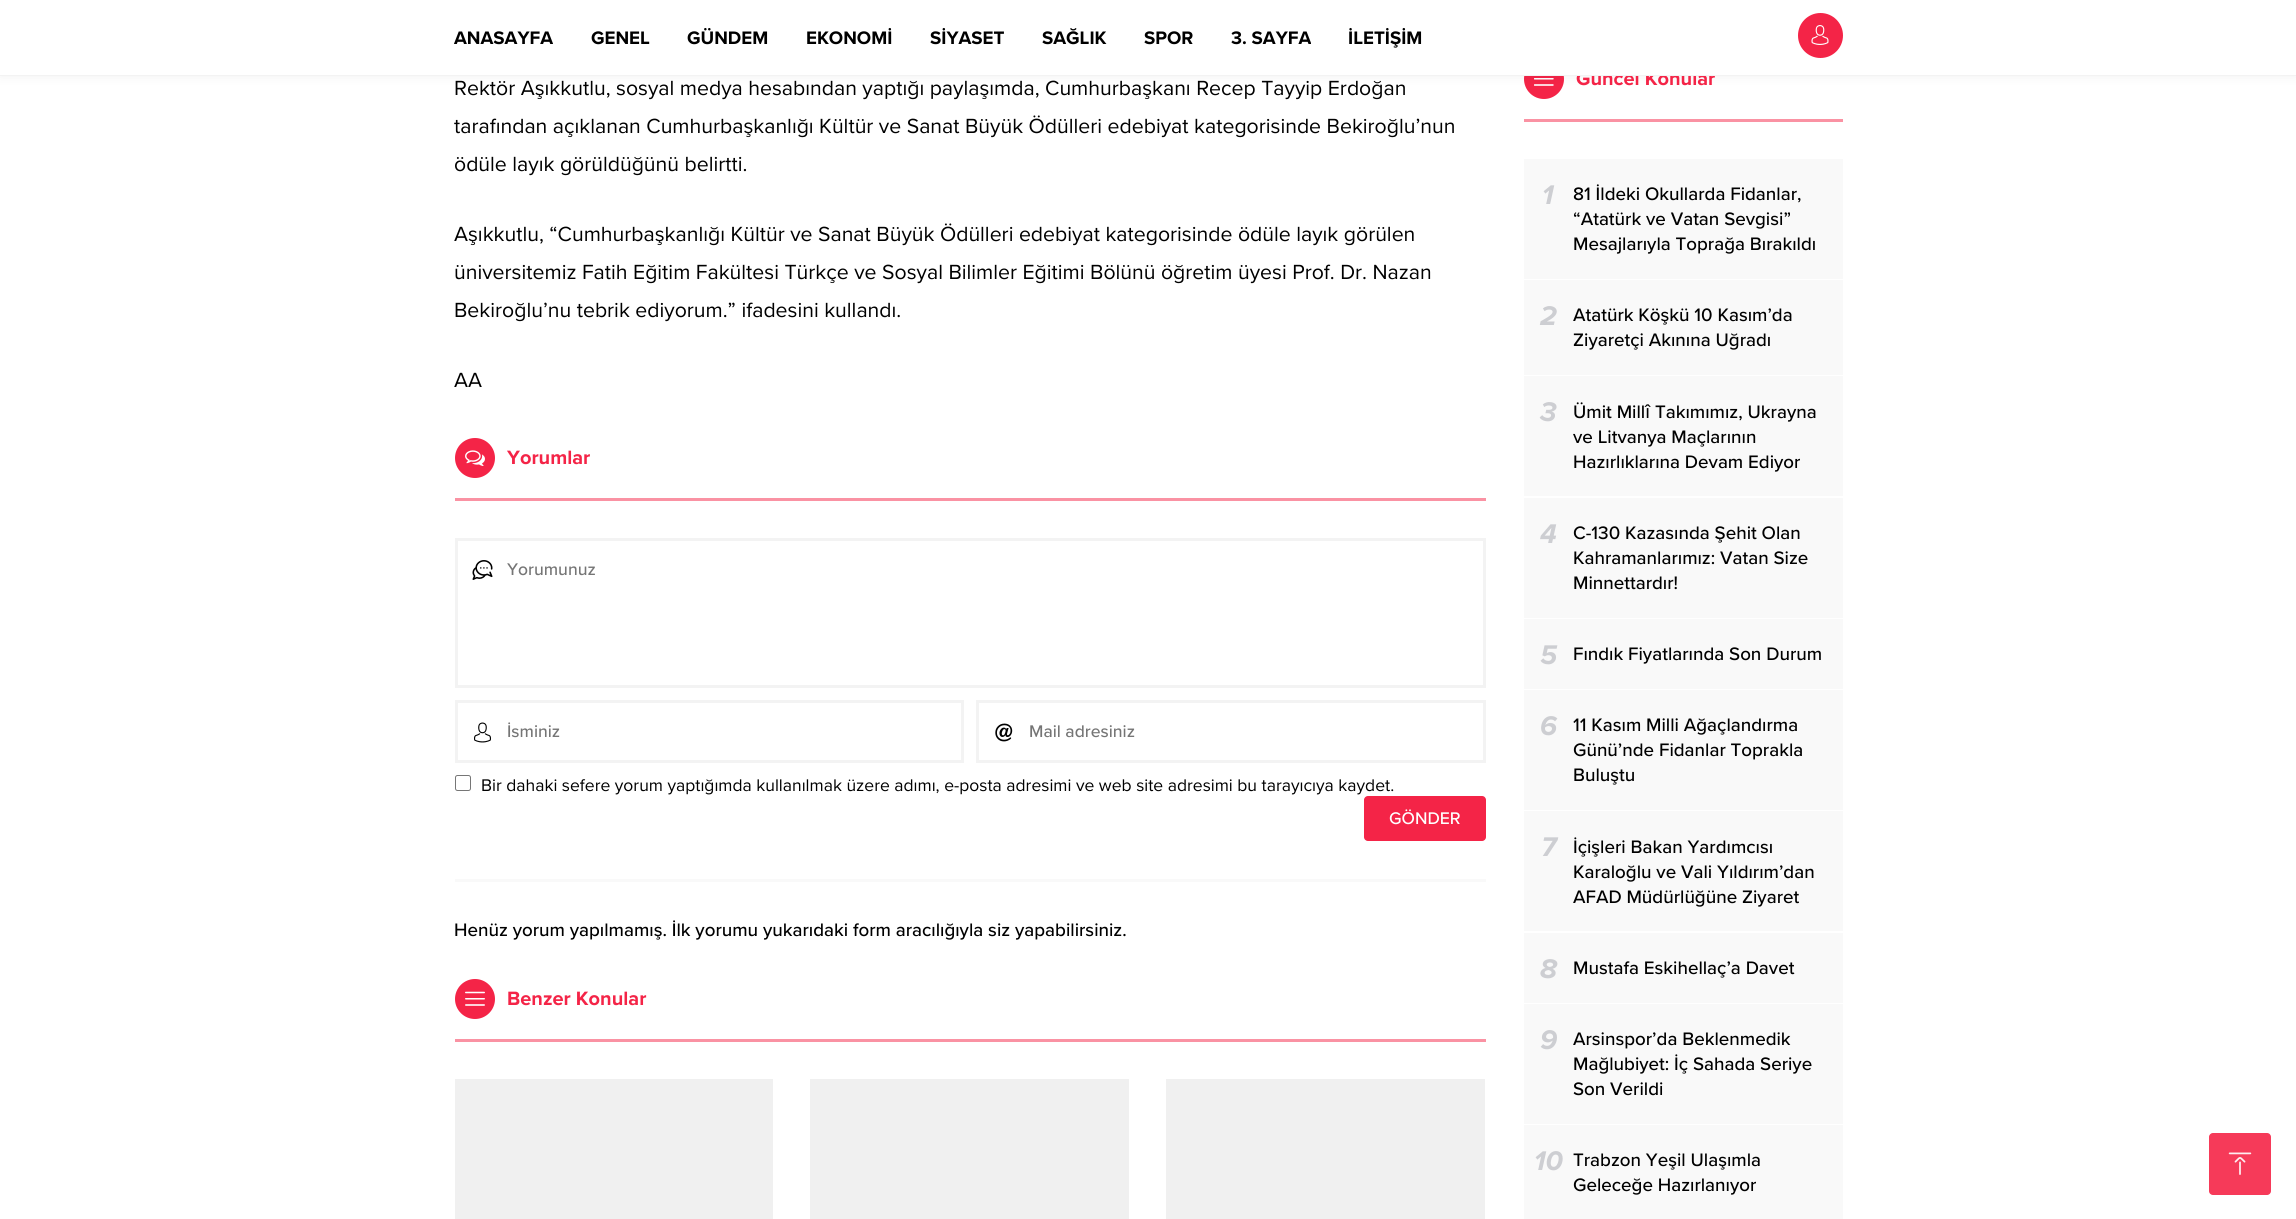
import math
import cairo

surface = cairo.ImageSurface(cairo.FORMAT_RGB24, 2296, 1219)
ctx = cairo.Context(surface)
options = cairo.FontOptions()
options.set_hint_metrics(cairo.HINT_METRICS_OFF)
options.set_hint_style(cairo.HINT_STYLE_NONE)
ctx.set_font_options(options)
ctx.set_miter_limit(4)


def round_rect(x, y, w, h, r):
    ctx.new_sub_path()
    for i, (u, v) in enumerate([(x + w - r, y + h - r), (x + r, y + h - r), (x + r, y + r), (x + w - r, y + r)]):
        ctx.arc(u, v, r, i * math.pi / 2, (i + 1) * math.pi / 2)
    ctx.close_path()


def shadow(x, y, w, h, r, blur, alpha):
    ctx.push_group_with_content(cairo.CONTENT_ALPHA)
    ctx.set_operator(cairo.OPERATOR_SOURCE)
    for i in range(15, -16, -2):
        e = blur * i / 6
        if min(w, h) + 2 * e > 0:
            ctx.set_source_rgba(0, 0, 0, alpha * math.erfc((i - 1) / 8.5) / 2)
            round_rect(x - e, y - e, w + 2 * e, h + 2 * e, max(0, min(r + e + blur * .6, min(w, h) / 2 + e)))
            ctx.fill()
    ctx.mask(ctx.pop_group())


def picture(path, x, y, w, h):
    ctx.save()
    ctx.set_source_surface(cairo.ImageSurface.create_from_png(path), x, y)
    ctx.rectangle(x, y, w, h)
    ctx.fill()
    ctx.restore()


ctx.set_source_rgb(1, 1, 1)
ctx.paint()
ctx.set_source_rgb(0.957, 0.141, 0.278)
ctx.arc(1544, 79, 20, 0, 2 * math.pi)
ctx.fill()
picture("img7.png", 1534, 78, 20, 8)
ctx.set_source_rgb(0, 0, 0)
shadow(0, 0, 2296, 76, 0, 6, 0.06)
ctx.select_font_face("Proxima Nova", cairo.FONT_SLANT_NORMAL, cairo.FONT_WEIGHT_BOLD)
ctx.set_font_size(20)
ctx.set_source_rgb(0.957, 0.141, 0.278)
ctx.move_to(1576, 85)
ctx.show_text("Güncel Konular")
ctx.set_source_rgb(1, 1, 1)
ctx.rectangle(0, 0, 2296, 75)
ctx.fill()
ctx.set_source_rgb(0.953, 0.953, 0.953)
ctx.rectangle(0, 75, 2296, 1)
ctx.fill()
ctx.set_font_size(18.75)
ctx.set_source_rgb(0, 0, 0)
ctx.move_to(454, 44)
ctx.show_text("ANASAYFA")
ctx.move_to(591, 44)
ctx.show_text("GENEL")
ctx.move_to(687, 44)
ctx.show_text("GÜNDEM")
ctx.move_to(806, 44)
ctx.show_text("EKONOMİ")
ctx.move_to(930, 44)
ctx.show_text("SİYASET")
ctx.move_to(1042, 44)
ctx.show_text("SAĞLIK")
ctx.move_to(1144, 44)
ctx.show_text("SPOR")
ctx.move_to(1231, 44)
ctx.show_text("3. SAYFA")
ctx.move_to(1348, 44)
ctx.show_text("İLETİŞİM")
ctx.set_source_rgb(0.957, 0.141, 0.278)
ctx.new_path()
ctx.arc(1820.5, 35.5, 22.5, 0, 2 * math.pi)
ctx.fill()
picture("img1.png", 1811, 25, 18, 20)
ctx.select_font_face("Proxima Nova")
ctx.set_font_size(21.25)
ctx.set_source_rgb(0, 0, 0)
ctx.move_to(454, 95)
ctx.show_text("Rektör Aşıkkutlu, sosyal medya hesabından yaptığı paylaşımda, Cumhurbaşkanı Recep Tayyip Erdoğan")
ctx.move_to(454, 133)
ctx.show_text("tarafından açıklanan Cumhurbaşkanlığı Kültür ve Sanat Büyük Ödülleri edebiyat kategorisinde Bekiroğlu’nun")
ctx.move_to(454, 171)
ctx.show_text("ödüle layık görüldüğünü belirtti.")
ctx.move_to(454, 241)
ctx.show_text("Aşıkkutlu, “Cumhurbaşkanlığı Kültür ve Sanat Büyük Ödülleri edebiyat kategorisinde ödüle layık görülen")
ctx.move_to(454, 279)
ctx.show_text("üniversitemiz Fatih Eğitim Fakültesi Türkçe ve Sosyal Bilimler Eğitimi Bölünü öğretim üyesi Prof. Dr. Nazan")
ctx.move_to(454, 317)
ctx.show_text("Bekiroğlu’nu tebrik ediyorum.” ifadesini kullandı.")
ctx.move_to(454, 387)
ctx.show_text("AA")
ctx.set_source_rgb(0.957, 0.141, 0.278)
ctx.new_path()
ctx.arc(475, 458, 20, 0, 2 * math.pi)
ctx.fill()
picture("img2.png", 465, 450, 20, 16)
ctx.select_font_face("Proxima Nova", cairo.FONT_SLANT_NORMAL, cairo.FONT_WEIGHT_BOLD)
ctx.set_font_size(20)
ctx.move_to(507, 464)
ctx.show_text("Yorumlar")
ctx.set_source_rgb(0.98, 0.573, 0.639)
ctx.rectangle(455, 498, 1031, 3)
ctx.fill()
ctx.rectangle(456.5, 539.5, 1028, 147)
ctx.set_source_rgb(0.953, 0.953, 0.953)
ctx.set_line_width(3)
ctx.stroke()
picture("img3.png", 472, 560, 21, 20)
ctx.select_font_face("Proxima Nova Medium")
ctx.set_font_size(17.5)
ctx.set_source_rgb(0.459, 0.459, 0.459)
ctx.move_to(507, 575)
ctx.show_text("Yorumunuz")
ctx.rectangle(456.5, 701.5, 506, 60)
ctx.set_source_rgb(0.953, 0.953, 0.953)
ctx.stroke()
picture("img4.png", 474, 722, 17, 21)
ctx.set_source_rgb(0.459, 0.459, 0.459)
ctx.move_to(507, 737)
ctx.show_text("İsminiz")
ctx.rectangle(977.5, 701.5, 507, 60)
ctx.set_source_rgb(0.953, 0.953, 0.953)
ctx.stroke()
picture("img5.png", 995, 723, 18, 19)
ctx.set_source_rgb(0.459, 0.459, 0.459)
ctx.move_to(1029, 737)
ctx.show_text("Mail adresiniz")
round_rect(455.5, 775.5, 15, 15, 2)
ctx.set_source_rgb(0.463, 0.463, 0.463)
ctx.set_line_width(1)
ctx.stroke()
ctx.select_font_face("Proxima Nova")
ctx.set_source_rgb(0, 0, 0)
ctx.move_to(481, 791)
ctx.show_text("Bir dahaki sefere yorum yaptığımda kullanılmak üzere adımı, e-posta adresimi ve web site adresimi bu tarayıcıya kaydet.")
ctx.set_source_rgb(0.957, 0.141, 0.278)
round_rect(1364, 796, 122, 45, 4)
ctx.fill()
ctx.select_font_face("Proxima Nova Medium")
ctx.set_source_rgb(1, 1, 1)
ctx.move_to(1389, 824)
ctx.show_text("GÖNDER")
ctx.set_source_rgb(0.973, 0.973, 0.973)
ctx.rectangle(455, 879, 1031, 3)
ctx.fill()
ctx.set_font_size(18.75)
ctx.set_source_rgb(0, 0, 0)
ctx.move_to(454, 936)
ctx.show_text("Henüz yorum yapılmamış. İlk yorumu yukarıdaki form aracılığıyla siz yapabilirsiniz.")
ctx.set_source_rgb(0.957, 0.141, 0.278)
ctx.new_path()
ctx.arc(475, 999, 20, 0, 2 * math.pi)
ctx.fill()
picture("img6.png", 465, 991, 20, 15)
ctx.select_font_face("Proxima Nova", cairo.FONT_SLANT_NORMAL, cairo.FONT_WEIGHT_BOLD)
ctx.set_font_size(20)
ctx.move_to(507, 1005)
ctx.show_text("Benzer Konular")
ctx.set_source_rgb(0.98, 0.573, 0.639)
ctx.rectangle(455, 1039, 1031, 3)
ctx.fill()
ctx.set_source_rgb(0.941, 0.941, 0.941)
ctx.rectangle(455, 1079, 318, 140)
ctx.fill()
ctx.rectangle(810, 1079, 319, 140)
ctx.fill()
ctx.rectangle(1166, 1079, 319, 140)
ctx.fill()
ctx.set_source_rgb(0.98, 0.573, 0.639)
ctx.rectangle(1524, 119, 319, 3)
ctx.fill()
ctx.set_source_rgb(0.976, 0.976, 0.976)
ctx.rectangle(1524, 159, 319, 120)
ctx.fill()
ctx.select_font_face("Proxima Nova", cairo.FONT_SLANT_ITALIC, cairo.FONT_WEIGHT_BOLD)
ctx.set_font_size(28)
ctx.set_source_rgb(0.804, 0.808, 0.824)
ctx.move_to(1542, 204)
ctx.show_text("1")
ctx.select_font_face("Proxima Nova Medium")
ctx.set_font_size(18.75)
ctx.set_source_rgb(0, 0, 0)
ctx.move_to(1573, 200)
ctx.show_text("81 İldeki Okullarda Fidanlar,")
ctx.move_to(1573, 225)
ctx.show_text("“Atatürk ve Vatan Sevgisi”")
ctx.move_to(1573, 250)
ctx.show_text("Mesajlarıyla Toprağa Bırakıldı")
ctx.set_source_rgb(0.976, 0.976, 0.976)
ctx.rectangle(1524, 280, 319, 95)
ctx.fill()
ctx.select_font_face("Proxima Nova", cairo.FONT_SLANT_ITALIC, cairo.FONT_WEIGHT_BOLD)
ctx.set_font_size(28)
ctx.set_source_rgb(0.804, 0.808, 0.824)
ctx.move_to(1540, 325)
ctx.show_text("2")
ctx.select_font_face("Proxima Nova Medium")
ctx.set_font_size(18.75)
ctx.set_source_rgb(0, 0, 0)
ctx.move_to(1573, 321)
ctx.show_text("Atatürk Köşkü 10 Kasım’da")
ctx.move_to(1573, 346)
ctx.show_text("Ziyaretçi Akınına Uğradı")
ctx.set_source_rgb(0.976, 0.976, 0.976)
ctx.rectangle(1524, 376, 319, 120)
ctx.fill()
ctx.select_font_face("Proxima Nova", cairo.FONT_SLANT_ITALIC, cairo.FONT_WEIGHT_BOLD)
ctx.set_font_size(28)
ctx.set_source_rgb(0.804, 0.808, 0.824)
ctx.move_to(1540, 421)
ctx.show_text("3")
ctx.select_font_face("Proxima Nova Medium")
ctx.set_font_size(18.75)
ctx.set_source_rgb(0, 0, 0)
ctx.move_to(1573, 418)
ctx.show_text("Ümit Mill")
ctx.select_font_face("Liberation Sans")
ctx.move_to(1645, 418)
ctx.show_text("î")
ctx.select_font_face("Proxima Nova Medium")
ctx.move_to(1655, 418)
ctx.show_text("Takımımız, Ukrayna")
ctx.move_to(1573, 443)
ctx.show_text("ve Litvanya Maçlarının")
ctx.move_to(1573, 468)
ctx.show_text("Hazırlıklarına Devam Ediyor")
ctx.set_source_rgb(0.976, 0.976, 0.976)
ctx.rectangle(1524, 498, 319, 120)
ctx.fill()
ctx.select_font_face("Proxima Nova", cairo.FONT_SLANT_ITALIC, cairo.FONT_WEIGHT_BOLD)
ctx.set_font_size(28)
ctx.set_source_rgb(0.804, 0.808, 0.824)
ctx.move_to(1540, 543)
ctx.show_text("4")
ctx.select_font_face("Proxima Nova Medium")
ctx.set_font_size(18.75)
ctx.set_source_rgb(0, 0, 0)
ctx.move_to(1573, 539)
ctx.show_text("C-130 Kazasında Şehit Olan")
ctx.move_to(1573, 564)
ctx.show_text("Kahramanlarımız: Vatan Size")
ctx.move_to(1573, 589)
ctx.show_text("Minnettardır!")
ctx.set_source_rgb(0.976, 0.976, 0.976)
ctx.rectangle(1524, 619, 319, 70)
ctx.fill()
ctx.select_font_face("Proxima Nova", cairo.FONT_SLANT_ITALIC, cairo.FONT_WEIGHT_BOLD)
ctx.set_font_size(28)
ctx.set_source_rgb(0.804, 0.808, 0.824)
ctx.move_to(1540, 664)
ctx.show_text("5")
ctx.select_font_face("Proxima Nova Medium")
ctx.set_font_size(18.75)
ctx.set_source_rgb(0, 0, 0)
ctx.move_to(1573, 660)
ctx.show_text("Fındık Fiyatlarında Son Durum")
ctx.set_source_rgb(0.976, 0.976, 0.976)
ctx.rectangle(1524, 690, 319, 120)
ctx.fill()
ctx.select_font_face("Proxima Nova", cairo.FONT_SLANT_ITALIC, cairo.FONT_WEIGHT_BOLD)
ctx.set_font_size(28)
ctx.set_source_rgb(0.804, 0.808, 0.824)
ctx.move_to(1540, 735)
ctx.show_text("6")
ctx.select_font_face("Proxima Nova Medium")
ctx.set_font_size(18.75)
ctx.set_source_rgb(0, 0, 0)
ctx.move_to(1573, 731)
ctx.show_text("11 Kasım Milli Ağaçlandırma")
ctx.move_to(1573, 756)
ctx.show_text("Günü’nde Fidanlar Toprakla")
ctx.move_to(1573, 781)
ctx.show_text("Buluştu")
ctx.set_source_rgb(0.976, 0.976, 0.976)
ctx.rectangle(1524, 811, 319, 120)
ctx.fill()
ctx.select_font_face("Proxima Nova", cairo.FONT_SLANT_ITALIC, cairo.FONT_WEIGHT_BOLD)
ctx.set_font_size(28)
ctx.set_source_rgb(0.804, 0.808, 0.824)
ctx.move_to(1541, 856)
ctx.show_text("7")
ctx.select_font_face("Proxima Nova Medium")
ctx.set_font_size(18.75)
ctx.set_source_rgb(0, 0, 0)
ctx.move_to(1573, 853)
ctx.show_text("İçişleri Bakan Yardımcısı")
ctx.move_to(1573, 878)
ctx.show_text("Karaloğlu ve Vali Yıldırım’dan")
ctx.move_to(1573, 903)
ctx.show_text("AFAD Müdürlüğüne Ziyaret")
ctx.set_source_rgb(0.976, 0.976, 0.976)
ctx.rectangle(1524, 933, 319, 70)
ctx.fill()
ctx.select_font_face("Proxima Nova", cairo.FONT_SLANT_ITALIC, cairo.FONT_WEIGHT_BOLD)
ctx.set_font_size(28)
ctx.set_source_rgb(0.804, 0.808, 0.824)
ctx.move_to(1540, 978)
ctx.show_text("8")
ctx.select_font_face("Proxima Nova Medium")
ctx.set_font_size(18.75)
ctx.set_source_rgb(0, 0, 0)
ctx.move_to(1573, 974)
ctx.show_text("Mustafa Eskihellaç’a Davet")
ctx.set_source_rgb(0.976, 0.976, 0.976)
ctx.rectangle(1524, 1004, 319, 120)
ctx.fill()
ctx.select_font_face("Proxima Nova", cairo.FONT_SLANT_ITALIC, cairo.FONT_WEIGHT_BOLD)
ctx.set_font_size(28)
ctx.set_source_rgb(0.804, 0.808, 0.824)
ctx.move_to(1540, 1049)
ctx.show_text("9")
ctx.select_font_face("Proxima Nova Medium")
ctx.set_font_size(18.75)
ctx.set_source_rgb(0, 0, 0)
ctx.move_to(1573, 1045)
ctx.show_text("Arsinspor’da Beklenmedik")
ctx.move_to(1573, 1070)
ctx.show_text("Mağlubiyet: İç Sahada Seriye")
ctx.move_to(1573, 1095)
ctx.show_text("Son Verildi")
ctx.set_source_rgb(0.976, 0.976, 0.976)
ctx.rectangle(1524, 1125, 319, 94)
ctx.fill()
ctx.select_font_face("Proxima Nova", cairo.FONT_SLANT_ITALIC, cairo.FONT_WEIGHT_BOLD)
ctx.set_font_size(28)
ctx.set_source_rgb(0.804, 0.808, 0.824)
ctx.move_to(1534, 1170)
ctx.show_text("10")
ctx.select_font_face("Proxima Nova Medium")
ctx.set_font_size(18.75)
ctx.set_source_rgb(0, 0, 0)
ctx.move_to(1573, 1166)
ctx.show_text("Trabzon Yeşil Ulaşımla")
ctx.move_to(1573, 1191)
ctx.show_text("Geleceğe Hazırlanıyor")
ctx.set_source_rgb(0.961, 0.227, 0.349)
round_rect(2209, 1133, 62, 62, 4)
ctx.fill()
picture("img8.png", 2228, 1152, 24, 23)
surface.write_to_png("page.png")
